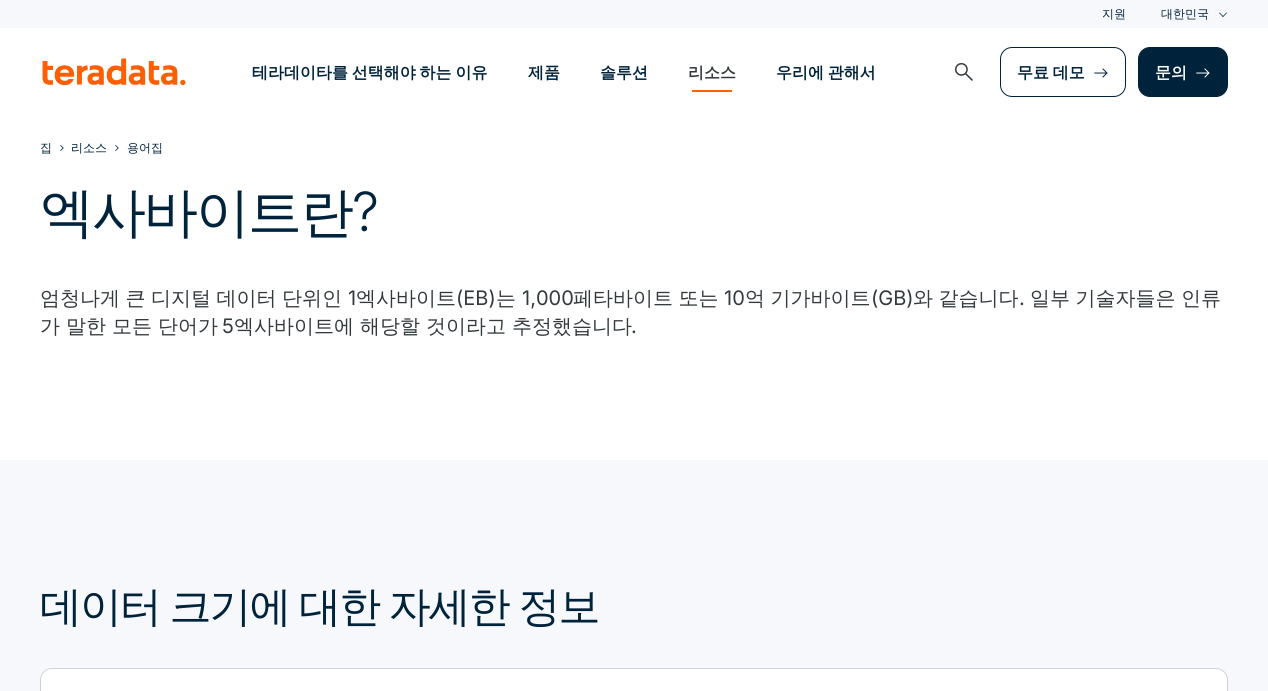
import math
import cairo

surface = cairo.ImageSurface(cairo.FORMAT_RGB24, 1268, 691)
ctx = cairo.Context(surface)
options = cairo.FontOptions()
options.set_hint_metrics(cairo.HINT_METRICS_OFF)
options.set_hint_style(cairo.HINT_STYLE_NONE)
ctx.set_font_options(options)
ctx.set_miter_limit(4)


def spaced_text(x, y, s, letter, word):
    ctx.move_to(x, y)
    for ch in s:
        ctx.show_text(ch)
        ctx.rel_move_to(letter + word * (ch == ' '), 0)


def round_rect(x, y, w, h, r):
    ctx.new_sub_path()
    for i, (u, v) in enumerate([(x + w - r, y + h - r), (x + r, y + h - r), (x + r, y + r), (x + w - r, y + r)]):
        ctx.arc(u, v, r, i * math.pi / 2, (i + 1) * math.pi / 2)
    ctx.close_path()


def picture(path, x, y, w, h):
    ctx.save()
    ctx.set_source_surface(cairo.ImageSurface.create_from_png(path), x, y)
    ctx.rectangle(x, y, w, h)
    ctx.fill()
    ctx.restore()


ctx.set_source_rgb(1, 1, 1)
ctx.paint()
ctx.set_source_rgb(0.965, 0.969, 0.984)
ctx.rectangle(0, 0, 1268, 28)
ctx.fill()
ctx.select_font_face("WenQuanYi Zen Hei Medium")
ctx.set_font_size(12)
ctx.set_source_rgb(0, 0.137, 0.235)
ctx.move_to(1102, 18)
ctx.show_text("지원")
ctx.move_to(1161, 18)
ctx.show_text("대한민국")
ctx.new_path()
ctx.move_to(1223, 17)
ctx.line_to(1219, 13)
ctx.line_to(1219.5, 12.5)
ctx.line_to(1223.5, 16.5)
ctx.close_path()
ctx.fill()
ctx.new_path()
ctx.move_to(1223, 17)
ctx.line_to(1222.5, 16.5)
ctx.line_to(1226.5, 12.5)
ctx.line_to(1227, 13)
ctx.close_path()
ctx.fill()
picture("img1.png", 42, 58, 144, 27)
ctx.select_font_face("WenQuanYi Zen Hei", cairo.FONT_SLANT_NORMAL, cairo.FONT_WEIGHT_BOLD)
ctx.set_font_size(16)
spaced_text(252, 78, "테라데이타를 선택해야 하는 이유", 0, -1)
ctx.move_to(528, 78)
ctx.show_text("제품")
ctx.move_to(600, 78)
ctx.show_text("솔루션")
ctx.set_source_rgb(0.2, 0.227, 0.243)
ctx.move_to(688, 78)
ctx.show_text("리소스")
ctx.set_source_rgb(1, 0.373, 0.008)
ctx.rectangle(692, 90, 40, 2)
ctx.fill()
ctx.set_source_rgb(0, 0.137, 0.235)
spaced_text(776, 78, "우리에 관해서", 0, -1)
picture("img2.png", 955, 63, 18, 18)
round_rect(1000.5, 47.5, 125, 49, 11.5)
ctx.set_line_width(1)
ctx.stroke()
spaced_text(1017, 78, "무료 데모", 0, -1)
picture("img3.png", 1094, 68, 14, 10)
round_rect(1138.5, 47.5, 89, 49, 11.5)
ctx.fill_preserve()
ctx.stroke()
ctx.set_source_rgb(1, 1, 1)
ctx.move_to(1155, 78)
ctx.show_text("문의")
picture("img4.png", 1196, 68, 14, 10)
ctx.select_font_face("WenQuanYi Zen Hei Medium")
ctx.set_font_size(12)
ctx.set_source_rgb(0, 0.137, 0.235)
ctx.move_to(40, 152)
ctx.show_text("집")
picture("img5.png", 60, 145, 4, 6)
ctx.move_to(71, 152)
ctx.show_text("리소스")
picture("img5.png", 115, 145, 4, 6)
ctx.move_to(127, 152)
ctx.show_text("용어집")
ctx.set_font_size(54)
spaced_text(40, 231, "엑사바이트란", -2, 0)
ctx.select_font_face("Inter Light")
spaced_text(352, 231, "?", -2, 0)
ctx.select_font_face("WenQuanYi Zen Hei Medium")
ctx.set_font_size(20)
ctx.set_source_rgb(0.2, 0.227, 0.243)
spaced_text(40, 305, "엄청나게 큰 디지털 데이터 단위인", 0, -0.5)
ctx.select_font_face("Inter")
ctx.move_to(348, 305)
ctx.show_text("1")
ctx.select_font_face("WenQuanYi Zen Hei Medium")
ctx.move_to(356, 305)
ctx.show_text("엑사바이트")
ctx.select_font_face("Inter")
ctx.move_to(456, 305)
ctx.show_text("(EB)")
ctx.select_font_face("WenQuanYi Zen Hei Medium")
ctx.move_to(496, 305)
ctx.show_text("는")
ctx.select_font_face("Inter")
ctx.move_to(522, 305)
ctx.show_text("1,000")
ctx.select_font_face("WenQuanYi Zen Hei Medium")
spaced_text(573, 305, "페타바이트 또는", 0, -0.5)
ctx.select_font_face("Inter")
ctx.move_to(724, 305)
ctx.show_text("10")
ctx.select_font_face("WenQuanYi Zen Hei Medium")
spaced_text(745, 305, "억 기가바이트", 0, -0.5)
ctx.select_font_face("Inter")
ctx.move_to(871, 305)
ctx.show_text("(GB)")
ctx.select_font_face("WenQuanYi Zen Hei Medium")
spaced_text(913, 305, "와 같습니다", 0, -0.5)
ctx.select_font_face("Inter")
ctx.move_to(1019, 305)
ctx.show_text(".")
ctx.select_font_face("WenQuanYi Zen Hei Medium")
spaced_text(1030, 305, "일부 기술자들은 인류", 0, -0.5)
ctx.move_to(40, 333)
ctx.show_text("가 말한 모든 단어가")
ctx.select_font_face("Inter")
ctx.move_to(222, 333)
ctx.show_text("5")
ctx.select_font_face("WenQuanYi Zen Hei Medium")
ctx.move_to(234, 333)
ctx.show_text("엑사바이트에 해당할 것이라고 추정했습니다")
ctx.select_font_face("Inter")
ctx.move_to(631, 333)
ctx.show_text(".")
ctx.set_source_rgb(0.965, 0.969, 0.984)
ctx.rectangle(0, 460, 1268, 231)
ctx.fill()
ctx.select_font_face("WenQuanYi Zen Hei Medium")
ctx.set_font_size(42)
ctx.set_source_rgb(0, 0.137, 0.235)
spaced_text(40, 621, "데이터 크기에 대한 자세한 정보", -2, -1)
ctx.set_source_rgb(1, 1, 1)
round_rect(40.5, 668.5, 1187, 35, 11.5)
ctx.fill_preserve()
ctx.set_source_rgb(0.808, 0.827, 0.855)
ctx.stroke()
surface.write_to_png("page.png")
